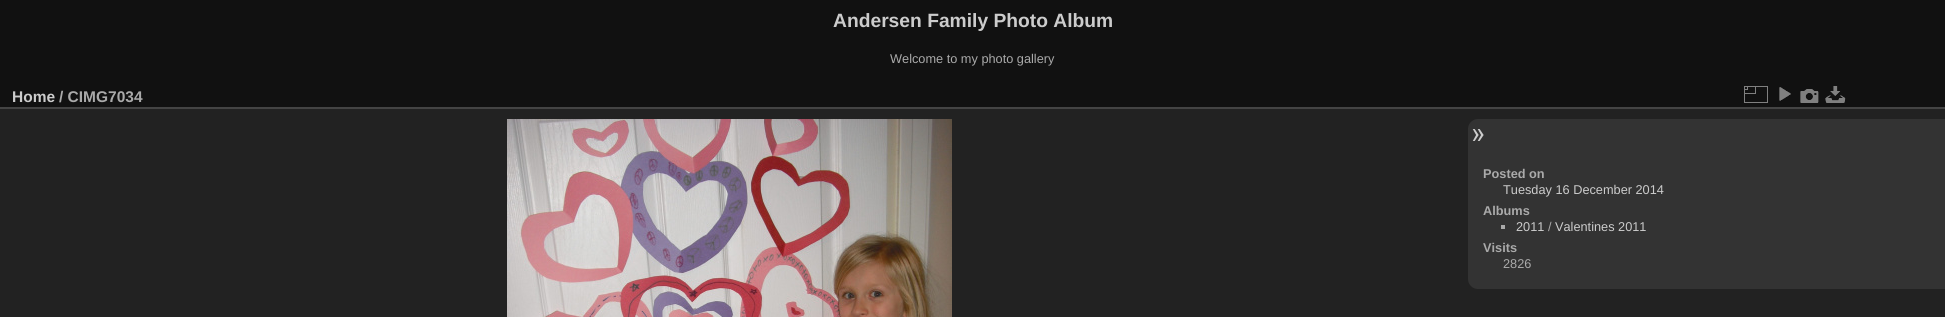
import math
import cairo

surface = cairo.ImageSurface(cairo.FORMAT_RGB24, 1945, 317)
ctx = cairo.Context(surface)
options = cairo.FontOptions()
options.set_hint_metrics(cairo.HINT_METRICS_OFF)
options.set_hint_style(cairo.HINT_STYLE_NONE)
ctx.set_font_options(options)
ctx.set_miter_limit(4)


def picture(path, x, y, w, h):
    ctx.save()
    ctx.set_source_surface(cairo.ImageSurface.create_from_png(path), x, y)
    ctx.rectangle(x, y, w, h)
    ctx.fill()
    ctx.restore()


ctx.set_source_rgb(0.067, 0.067, 0.067)
ctx.paint()
ctx.select_font_face("Liberation Sans", cairo.FONT_SLANT_NORMAL, cairo.FONT_WEIGHT_BOLD)
ctx.set_font_size(19.25)
ctx.set_source_rgb(0.8, 0.8, 0.8)
ctx.move_to(833, 27)
ctx.show_text("Andersen Family Photo Album")
ctx.select_font_face("Liberation Sans")
ctx.set_font_size(12.75)
ctx.set_source_rgb(0.667, 0.667, 0.667)
ctx.move_to(890, 63)
ctx.show_text("Welcome to my photo gallery")
ctx.set_source_rgb(0.133, 0.133, 0.133)
ctx.rectangle(0, 109, 1945, 208)
ctx.fill()
ctx.set_source_rgb(0.267, 0.267, 0.267)
ctx.rectangle(0, 107, 1945, 2)
ctx.fill()
ctx.select_font_face("Liberation Sans", cairo.FONT_SLANT_NORMAL, cairo.FONT_WEIGHT_BOLD)
ctx.set_font_size(15.5)
ctx.set_source_rgb(0.8, 0.8, 0.8)
ctx.move_to(12, 102)
ctx.show_text("Home")
ctx.set_source_rgb(0.667, 0.667, 0.667)
ctx.move_to(59, 102)
ctx.show_text("/ CIMG7034")
picture("img1.png", 1744, 86, 24, 17)
picture("img2.png", 1779, 87, 12, 14)
picture("img3.png", 1800, 89, 19, 14)
picture("img4.png", 1825, 86, 21, 17)
picture("img5.png", 507, 119, 445, 198)
ctx.set_source_rgb(0.2, 0.2, 0.2)
ctx.new_path()
ctx.move_to(1478, 119)
ctx.line_to(1945, 119)
ctx.line_to(1945, 289)
ctx.line_to(1478, 289)
ctx.curve_to(1472.5, 289, 1468, 284.5, 1468, 279)
ctx.line_to(1468, 129)
ctx.curve_to(1468, 123.5, 1472.5, 119, 1478, 119)
ctx.close_path()
ctx.fill()
picture("img6.png", 1472, 129, 12, 12)
ctx.set_font_size(12.75)
ctx.set_source_rgb(0.667, 0.667, 0.667)
ctx.move_to(1483, 178)
ctx.show_text("Posted on")
ctx.select_font_face("Liberation Sans")
ctx.set_source_rgb(0.8, 0.8, 0.8)
ctx.move_to(1503, 194)
ctx.show_text("Tuesday 16 December 2014")
ctx.select_font_face("Liberation Sans", cairo.FONT_SLANT_NORMAL, cairo.FONT_WEIGHT_BOLD)
ctx.set_source_rgb(0.667, 0.667, 0.667)
ctx.move_to(1483, 215)
ctx.show_text("Albums")
ctx.rectangle(1501, 225, 4, 4)
ctx.fill()
ctx.select_font_face("Liberation Sans")
ctx.set_source_rgb(0.8, 0.8, 0.8)
ctx.move_to(1516, 231)
ctx.show_text("2011")
ctx.set_source_rgb(0.667, 0.667, 0.667)
ctx.move_to(1548, 231)
ctx.show_text("/")
ctx.set_source_rgb(0.8, 0.8, 0.8)
ctx.move_to(1555, 231)
ctx.show_text("Valentines 2011")
ctx.select_font_face("Liberation Sans", cairo.FONT_SLANT_NORMAL, cairo.FONT_WEIGHT_BOLD)
ctx.set_source_rgb(0.667, 0.667, 0.667)
ctx.move_to(1483, 252)
ctx.show_text("Visits")
ctx.select_font_face("Liberation Sans")
ctx.move_to(1503, 268)
ctx.show_text("2826")
surface.write_to_png("page.png")
